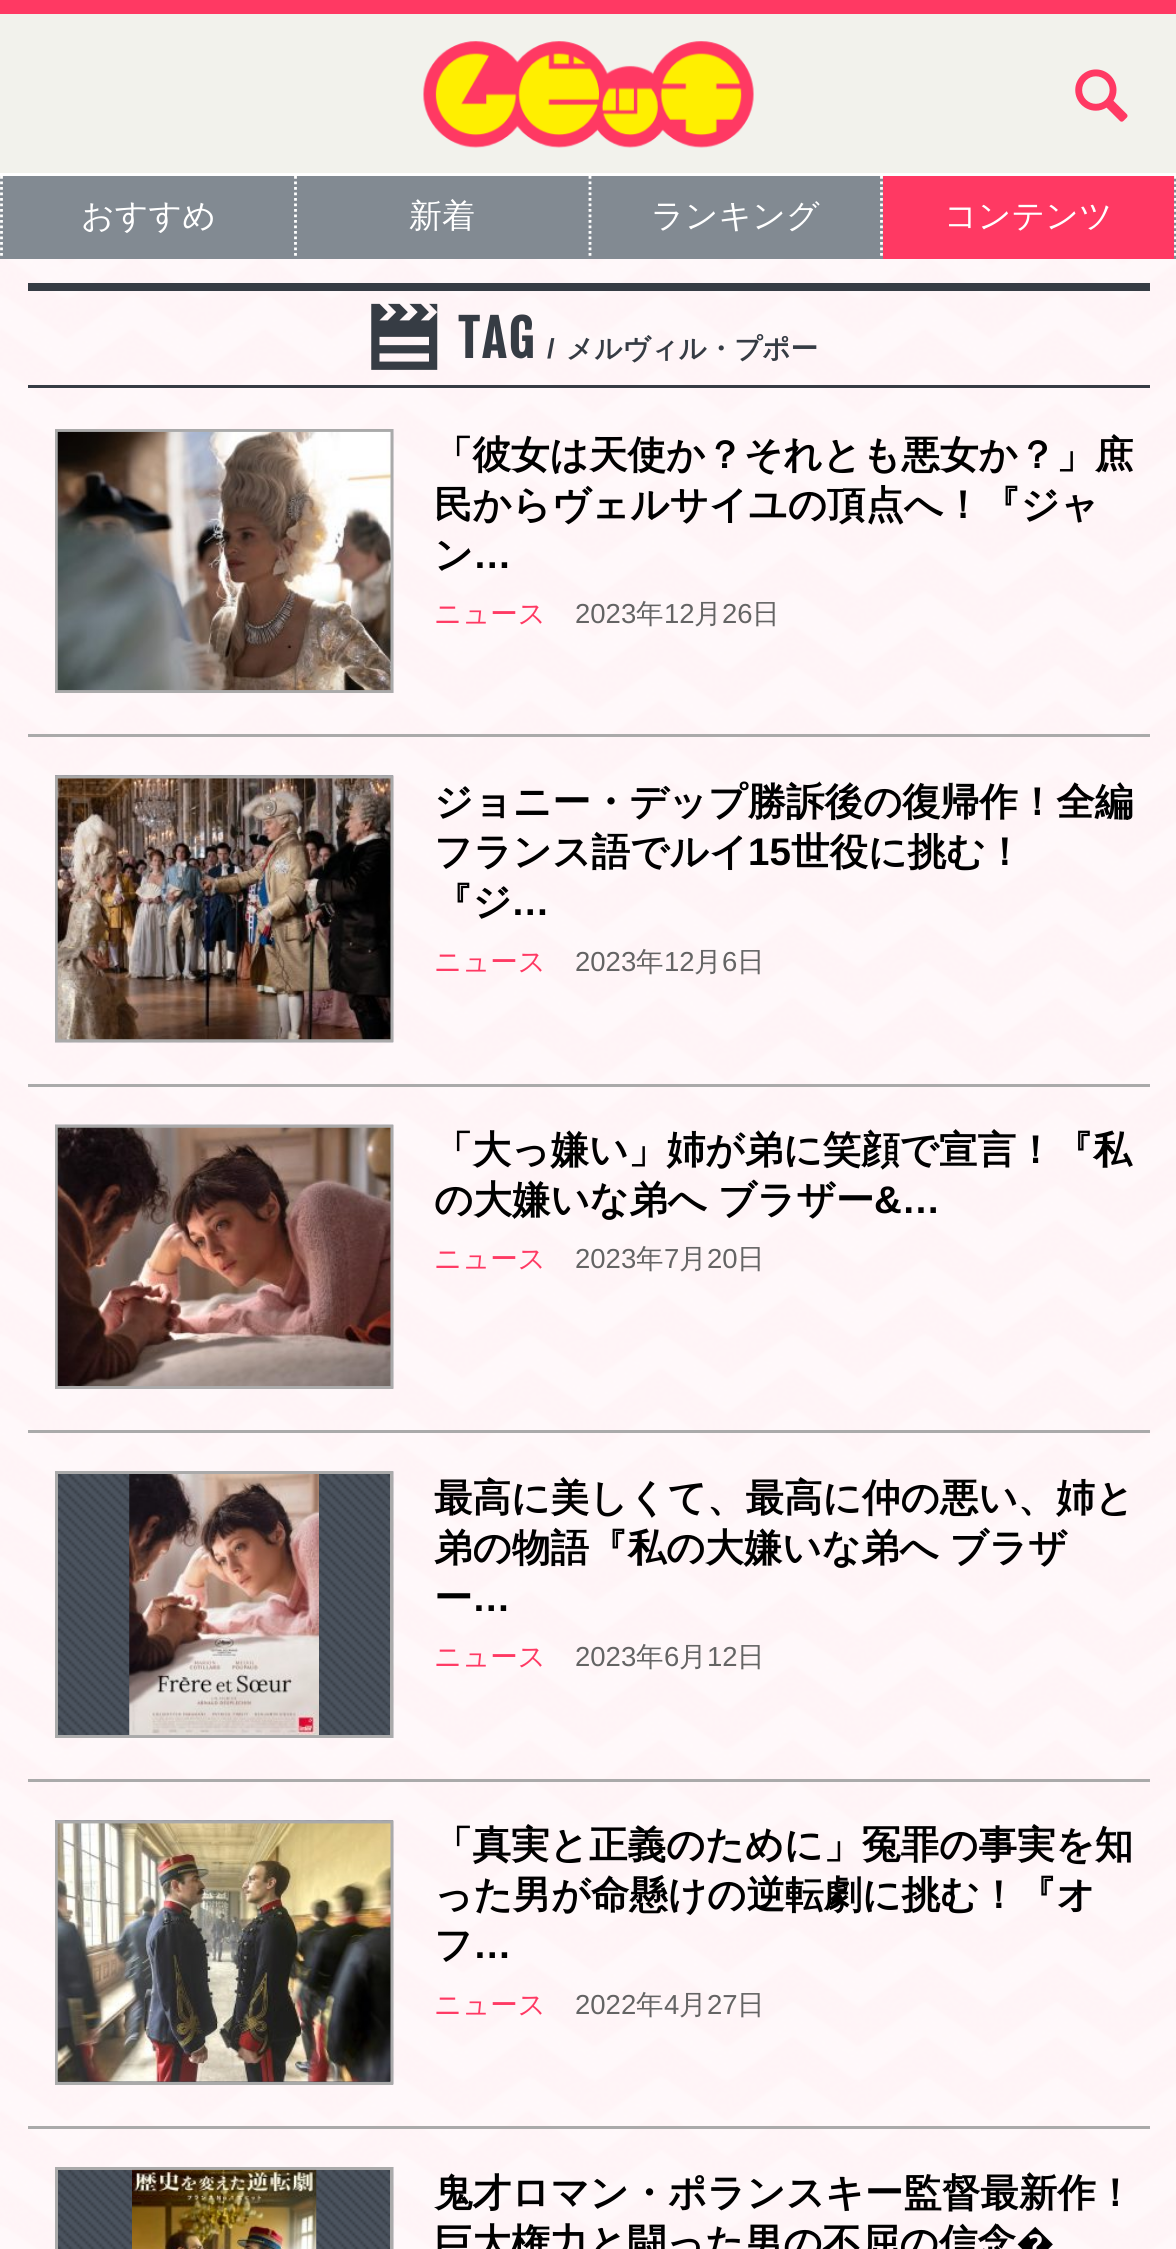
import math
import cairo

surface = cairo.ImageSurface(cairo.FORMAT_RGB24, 1176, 2249)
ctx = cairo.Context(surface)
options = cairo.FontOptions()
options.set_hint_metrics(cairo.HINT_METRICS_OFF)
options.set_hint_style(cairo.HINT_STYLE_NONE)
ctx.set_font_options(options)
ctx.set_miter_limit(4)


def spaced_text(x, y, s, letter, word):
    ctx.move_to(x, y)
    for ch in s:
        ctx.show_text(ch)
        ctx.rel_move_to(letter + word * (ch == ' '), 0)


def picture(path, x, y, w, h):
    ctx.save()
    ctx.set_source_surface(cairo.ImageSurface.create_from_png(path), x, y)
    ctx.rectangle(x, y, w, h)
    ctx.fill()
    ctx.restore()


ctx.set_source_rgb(1, 1, 1)
ctx.paint()
picture("img1.png", 0, 259, 1176, 1990)
ctx.set_source_rgb(0.949, 0.949, 0.922)
ctx.rectangle(0, 14, 1176, 159)
ctx.fill()
ctx.set_source_rgb(1, 0.224, 0.388)
ctx.rectangle(0, 0, 1176, 14)
ctx.fill()
picture("img2.png", 423, 41, 331, 107)
picture("img3.png", 1075, 69, 53, 53)
ctx.set_source_rgb(0.51, 0.541, 0.573)
ctx.rectangle(0, 176, 1176, 83)
ctx.fill()
ctx.new_path()
ctx.move_to(1175.5, 176)
ctx.line_to(1175.5, 258.5)
ctx.set_source_rgb(1, 1, 1)
ctx.set_line_width(2.8)
ctx.set_dash([2.75, 2.75])
ctx.stroke()
ctx.new_path()
ctx.move_to(1.5, 176)
ctx.line_to(1.5, 258.5)
ctx.stroke()
ctx.select_font_face("WenQuanYi Zen Hei Medium")
ctx.set_font_size(33)
ctx.move_to(81, 227)
ctx.show_text("おすすめ")
ctx.new_path()
ctx.move_to(295.5, 176)
ctx.line_to(295.5, 258.5)
ctx.stroke()
ctx.move_to(409, 227)
ctx.show_text("新着")
ctx.new_path()
ctx.move_to(590, 176)
ctx.line_to(590, 258.5)
ctx.stroke()
ctx.move_to(651, 227)
ctx.show_text("ランキング")
ctx.new_path()
ctx.move_to(881.5, 176)
ctx.line_to(881.5, 258.5)
ctx.stroke()
ctx.set_source_rgb(1, 0.224, 0.388)
ctx.rectangle(883, 176, 291, 83)
ctx.fill()
ctx.set_source_rgb(1, 1, 1)
ctx.move_to(944, 227)
ctx.show_text("コンテンツ")
ctx.set_source_rgba(1, 1, 1, 0.85)
ctx.rectangle(0, 259, 1176, 1990)
ctx.fill()
ctx.set_source_rgb(0.212, 0.235, 0.267)
ctx.rectangle(28, 283, 1122, 8)
ctx.fill()
ctx.rectangle(28, 385, 1122, 3)
ctx.fill()
picture("img4.png", 371, 303, 67, 67)
ctx.select_font_face("Fjalla One", cairo.FONT_SLANT_NORMAL, cairo.FONT_WEIGHT_BOLD)
ctx.set_font_size(50)
spaced_text(458, 358, "TAG", 3, 0)
ctx.select_font_face("Liberation Sans", cairo.FONT_SLANT_NORMAL, cairo.FONT_WEIGHT_BOLD)
ctx.set_font_size(27.5)
ctx.move_to(547, 358)
ctx.show_text("/")
ctx.select_font_face("WenQuanYi Zen Hei", cairo.FONT_SLANT_NORMAL, cairo.FONT_WEIGHT_BOLD)
ctx.move_to(566, 358)
ctx.show_text("メルヴィル・プポー")
ctx.set_source_rgb(0.667, 0.667, 0.667)
ctx.rectangle(28, 734, 1122, 3)
ctx.fill()
picture("img5.png", 393, 429, 1, 264)
ctx.rectangle(56.5, 430.5, 335, 261)
ctx.set_line_width(3)
ctx.set_dash([])
ctx.stroke()
picture("img6.png", 57, 431, 334, 260)
ctx.set_font_size(38.5)
ctx.set_source_rgb(0, 0, 0)
ctx.move_to(434, 468)
ctx.show_text("「彼女は天使か？それとも悪女か？」庶")
ctx.move_to(434, 518)
ctx.show_text("民からヴェルサイユの頂点へ！『ジャ")
ctx.move_to(434, 568)
ctx.show_text("ン")
ctx.select_font_face("Liberation Sans", cairo.FONT_SLANT_NORMAL, cairo.FONT_WEIGHT_BOLD)
ctx.move_to(473, 568)
ctx.show_text("…")
ctx.select_font_face("WenQuanYi Zen Hei Medium")
ctx.set_font_size(27.5)
ctx.set_source_rgb(1, 0.224, 0.388)
ctx.move_to(434, 623)
ctx.show_text("ニュース")
ctx.select_font_face("Liberation Sans")
ctx.set_source_rgb(0.392, 0.392, 0.392)
ctx.move_to(575, 623)
ctx.show_text("2023")
ctx.select_font_face("WenQuanYi Zen Hei Medium")
ctx.move_to(636, 623)
ctx.show_text("年")
ctx.select_font_face("Liberation Sans")
ctx.move_to(664, 623)
ctx.show_text("12")
ctx.select_font_face("WenQuanYi Zen Hei Medium")
ctx.move_to(694, 623)
ctx.show_text("月")
ctx.select_font_face("Liberation Sans")
ctx.move_to(722, 623)
ctx.show_text("26")
ctx.select_font_face("WenQuanYi Zen Hei Medium")
ctx.move_to(752, 623)
ctx.show_text("日")
ctx.set_source_rgb(0.667, 0.667, 0.667)
ctx.rectangle(28, 1084, 1122, 3)
ctx.fill()
picture("img7.png", 55, 775, 339, 268)
ctx.rectangle(56.5, 777.5, 335, 263)
ctx.stroke()
picture("img8.png", 57, 778, 334, 262)
ctx.select_font_face("WenQuanYi Zen Hei", cairo.FONT_SLANT_NORMAL, cairo.FONT_WEIGHT_BOLD)
ctx.set_font_size(38.5)
ctx.set_source_rgb(0, 0, 0)
ctx.move_to(434, 815)
ctx.show_text("ジョニー・デップ勝訴後の復帰作！全編")
ctx.move_to(434, 865)
ctx.show_text("フランス語でルイ")
ctx.select_font_face("Liberation Sans", cairo.FONT_SLANT_NORMAL, cairo.FONT_WEIGHT_BOLD)
ctx.move_to(748, 865)
ctx.show_text("15")
ctx.select_font_face("WenQuanYi Zen Hei", cairo.FONT_SLANT_NORMAL, cairo.FONT_WEIGHT_BOLD)
ctx.move_to(791, 865)
ctx.show_text("世役に挑む！")
ctx.move_to(434, 915)
ctx.show_text("『ジ")
ctx.select_font_face("Liberation Sans", cairo.FONT_SLANT_NORMAL, cairo.FONT_WEIGHT_BOLD)
ctx.move_to(511, 915)
ctx.show_text("…")
ctx.select_font_face("WenQuanYi Zen Hei Medium")
ctx.set_font_size(27.5)
ctx.set_source_rgb(1, 0.224, 0.388)
ctx.move_to(434, 971)
ctx.show_text("ニュース")
ctx.select_font_face("Liberation Sans")
ctx.set_source_rgb(0.392, 0.392, 0.392)
ctx.move_to(575, 971)
ctx.show_text("2023")
ctx.select_font_face("WenQuanYi Zen Hei Medium")
ctx.move_to(636, 971)
ctx.show_text("年")
ctx.select_font_face("Liberation Sans")
ctx.move_to(664, 971)
ctx.show_text("12")
ctx.select_font_face("WenQuanYi Zen Hei Medium")
ctx.move_to(694, 971)
ctx.show_text("月")
ctx.select_font_face("Liberation Sans")
ctx.move_to(722, 971)
ctx.show_text("6")
ctx.select_font_face("WenQuanYi Zen Hei Medium")
ctx.move_to(737, 971)
ctx.show_text("日")
ctx.set_source_rgb(0.667, 0.667, 0.667)
ctx.rectangle(28, 1430, 1122, 3)
ctx.fill()
picture("img9.png", 55, 1124, 339, 265)
ctx.rectangle(56.5, 1126.5, 335, 261)
ctx.stroke()
picture("img10.png", 57, 1127, 334, 259)
ctx.select_font_face("WenQuanYi Zen Hei", cairo.FONT_SLANT_NORMAL, cairo.FONT_WEIGHT_BOLD)
ctx.set_font_size(38.5)
ctx.set_source_rgb(0, 0, 0)
ctx.move_to(434, 1163)
ctx.show_text("「大っ嫌い」姉が弟に笑顔で宣言！『私")
spaced_text(434, 1213, "の大嫌いな弟へ ブラザー", 0, -1)
ctx.select_font_face("Liberation Sans", cairo.FONT_SLANT_NORMAL, cairo.FONT_WEIGHT_BOLD)
ctx.move_to(874, 1213)
ctx.show_text("&…")
ctx.select_font_face("WenQuanYi Zen Hei Medium")
ctx.set_font_size(27.5)
ctx.set_source_rgb(1, 0.224, 0.388)
ctx.move_to(434, 1268)
ctx.show_text("ニュース")
ctx.select_font_face("Liberation Sans")
ctx.set_source_rgb(0.392, 0.392, 0.392)
ctx.move_to(575, 1268)
ctx.show_text("2023")
ctx.select_font_face("WenQuanYi Zen Hei Medium")
ctx.move_to(636, 1268)
ctx.show_text("年")
ctx.select_font_face("Liberation Sans")
ctx.move_to(664, 1268)
ctx.show_text("7")
ctx.select_font_face("WenQuanYi Zen Hei Medium")
ctx.move_to(679, 1268)
ctx.show_text("月")
ctx.select_font_face("Liberation Sans")
ctx.move_to(707, 1268)
ctx.show_text("20")
ctx.select_font_face("WenQuanYi Zen Hei Medium")
ctx.move_to(737, 1268)
ctx.show_text("日")
ctx.set_source_rgb(0.667, 0.667, 0.667)
ctx.rectangle(28, 1779, 1122, 3)
ctx.fill()
picture("img11.png", 58, 1471, 336, 267)
ctx.rectangle(56.5, 1472.5, 335, 264)
ctx.stroke()
picture("img12.png", 129, 1474, 190, 262)
ctx.select_font_face("WenQuanYi Zen Hei", cairo.FONT_SLANT_NORMAL, cairo.FONT_WEIGHT_BOLD)
ctx.set_font_size(38.5)
ctx.set_source_rgb(0, 0, 0)
ctx.move_to(434, 1511)
ctx.show_text("最高に美しくて、最高に仲の悪い、姉と")
spaced_text(434, 1561, "弟の物語『私の大嫌いな弟へ ブラザ", 0, -1)
ctx.move_to(434, 1611)
ctx.show_text("ー")
ctx.select_font_face("Liberation Sans", cairo.FONT_SLANT_NORMAL, cairo.FONT_WEIGHT_BOLD)
ctx.move_to(472, 1611)
ctx.show_text("…")
ctx.select_font_face("WenQuanYi Zen Hei Medium")
ctx.set_font_size(27.5)
ctx.set_source_rgb(1, 0.224, 0.388)
ctx.move_to(434, 1666)
ctx.show_text("ニュース")
ctx.select_font_face("Liberation Sans")
ctx.set_source_rgb(0.392, 0.392, 0.392)
ctx.move_to(575, 1666)
ctx.show_text("2023")
ctx.select_font_face("WenQuanYi Zen Hei Medium")
ctx.move_to(636, 1666)
ctx.show_text("年")
ctx.select_font_face("Liberation Sans")
ctx.move_to(664, 1666)
ctx.show_text("6")
ctx.select_font_face("WenQuanYi Zen Hei Medium")
ctx.move_to(679, 1666)
ctx.show_text("月")
ctx.select_font_face("Liberation Sans")
ctx.move_to(707, 1666)
ctx.show_text("12")
ctx.select_font_face("WenQuanYi Zen Hei Medium")
ctx.move_to(737, 1666)
ctx.show_text("日")
ctx.set_source_rgb(0.667, 0.667, 0.667)
ctx.rectangle(28, 2126, 1122, 3)
ctx.fill()
picture("img13.png", 55, 1820, 339, 265)
ctx.rectangle(56.5, 1822.5, 335, 261)
ctx.stroke()
picture("img14.png", 57, 1823, 334, 259)
ctx.select_font_face("WenQuanYi Zen Hei", cairo.FONT_SLANT_NORMAL, cairo.FONT_WEIGHT_BOLD)
ctx.set_font_size(38.5)
ctx.set_source_rgb(0, 0, 0)
ctx.move_to(434, 1858)
ctx.show_text("「真実と正義のために」冤罪の事実を知")
ctx.move_to(434, 1908)
ctx.show_text("った男が命懸けの逆転劇に挑む！『オ")
ctx.move_to(434, 1958)
ctx.show_text("フ")
ctx.select_font_face("Liberation Sans", cairo.FONT_SLANT_NORMAL, cairo.FONT_WEIGHT_BOLD)
ctx.move_to(473, 1958)
ctx.show_text("…")
ctx.select_font_face("WenQuanYi Zen Hei Medium")
ctx.set_font_size(27.5)
ctx.set_source_rgb(1, 0.224, 0.388)
ctx.move_to(434, 2014)
ctx.show_text("ニュース")
ctx.select_font_face("Liberation Sans")
ctx.set_source_rgb(0.392, 0.392, 0.392)
ctx.move_to(575, 2014)
ctx.show_text("2022")
ctx.select_font_face("WenQuanYi Zen Hei Medium")
ctx.move_to(636, 2014)
ctx.show_text("年")
ctx.select_font_face("Liberation Sans")
ctx.move_to(664, 2014)
ctx.show_text("4")
ctx.select_font_face("WenQuanYi Zen Hei Medium")
ctx.move_to(679, 2014)
ctx.show_text("月")
ctx.select_font_face("Liberation Sans")
ctx.move_to(707, 2014)
ctx.show_text("27")
ctx.select_font_face("WenQuanYi Zen Hei Medium")
ctx.move_to(737, 2014)
ctx.show_text("日")
picture("img15.png", 58, 2167, 336, 82)
ctx.rectangle(56.5, 2168.5, 335, 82)
ctx.set_source_rgb(0.667, 0.667, 0.667)
ctx.stroke()
picture("img16.png", 132, 2169, 185, 80)
ctx.select_font_face("WenQuanYi Zen Hei", cairo.FONT_SLANT_NORMAL, cairo.FONT_WEIGHT_BOLD)
ctx.set_font_size(38.5)
ctx.set_source_rgb(0, 0, 0)
ctx.move_to(434, 2206)
ctx.show_text("鬼才ロマン・ポランスキー監督最新作！")
ctx.move_to(434, 2256)
ctx.show_text("巨大権力と闘った男の不屈の信念")
ctx.select_font_face("Noto Sans", cairo.FONT_SLANT_NORMAL, cairo.FONT_WEIGHT_BOLD)
ctx.move_to(1016, 2256)
ctx.show_text("�")
surface.write_to_png("page.png")
